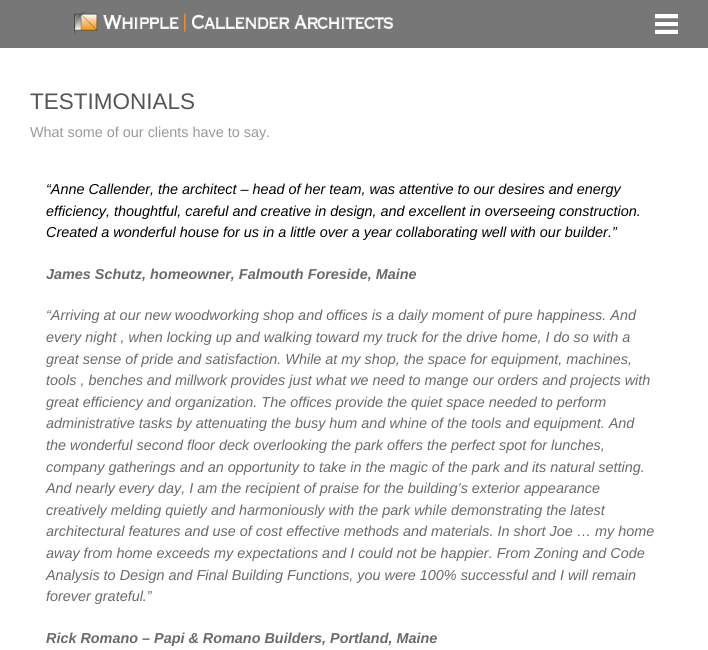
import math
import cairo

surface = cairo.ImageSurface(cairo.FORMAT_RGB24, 708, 650)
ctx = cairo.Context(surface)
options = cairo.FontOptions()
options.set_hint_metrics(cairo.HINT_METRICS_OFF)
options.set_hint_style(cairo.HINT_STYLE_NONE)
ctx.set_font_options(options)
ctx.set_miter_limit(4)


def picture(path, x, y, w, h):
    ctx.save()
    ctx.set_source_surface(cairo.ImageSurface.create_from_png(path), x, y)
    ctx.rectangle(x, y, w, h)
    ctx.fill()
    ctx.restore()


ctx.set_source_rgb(1, 1, 1)
ctx.paint()
ctx.set_source_rgb(0.467, 0.467, 0.467)
ctx.rectangle(0, 0, 708, 48)
ctx.fill()
picture("img1.png", 74, 11, 320, 23)
picture("img2.png", 655, 14, 23, 20)
ctx.select_font_face("Liberation Sans")
ctx.set_font_size(22.5)
ctx.set_source_rgb(0.333, 0.333, 0.333)
ctx.move_to(30, 109)
ctx.show_text("TESTIMONIALS")
ctx.set_font_size(14.4)
ctx.set_source_rgb(0.6, 0.6, 0.6)
ctx.move_to(30, 137)
ctx.show_text("What some of our clients have to say.")
ctx.select_font_face("Liberation Sans", cairo.FONT_SLANT_ITALIC)
ctx.set_source_rgb(0, 0, 0)
ctx.move_to(46, 194)
ctx.show_text("“Anne Callender, the architect – head of her team, was attentive to our desires and energy")
ctx.move_to(46, 216)
ctx.show_text("efficiency, thoughtful, careful and creative in design, and excellent in overseeing construction.")
ctx.move_to(46, 237)
ctx.show_text("Created a wonderful house for us in a little over a year collaborating well with our builder.”")
ctx.select_font_face("Liberation Sans", cairo.FONT_SLANT_ITALIC, cairo.FONT_WEIGHT_BOLD)
ctx.set_source_rgb(0.416, 0.416, 0.416)
ctx.move_to(46, 279)
ctx.show_text("James Schutz, homeowner, Falmouth Foreside, Maine")
ctx.select_font_face("Liberation Sans", cairo.FONT_SLANT_ITALIC)
ctx.move_to(46, 320)
ctx.show_text("“Arriving at our new woodworking shop and offices is a daily moment of pure happiness. And")
ctx.move_to(46, 342)
ctx.show_text("every night , when locking up and walking toward my truck for the drive home, I do so with a")
ctx.move_to(46, 364)
ctx.show_text("great sense of pride and satisfaction. While at my shop, the space for equipment, machines,")
ctx.move_to(46, 385)
ctx.show_text("tools , benches and millwork provides just what we need to mange our orders and projects with")
ctx.move_to(46, 407)
ctx.show_text("great efficiency and organization. The offices provide the quiet space needed to perform")
ctx.move_to(46, 428)
ctx.show_text("administrative tasks by attenuating the busy hum and whine of the tools and equipment. And")
ctx.move_to(46, 450)
ctx.show_text("the wonderful second floor deck overlooking the park offers the perfect spot for lunches,")
ctx.move_to(46, 472)
ctx.show_text("company gatherings and an opportunity to take in the magic of the park and its natural setting.")
ctx.move_to(46, 493)
ctx.show_text("And nearly every day, I am the recipient of praise for the building’s exterior appearance")
ctx.move_to(46, 515)
ctx.show_text("creatively melding quietly and harmoniously with the park while demonstrating the latest")
ctx.move_to(46, 536)
ctx.show_text("architectural features and use of cost effective methods and materials. In short Joe … my home")
ctx.move_to(46, 558)
ctx.show_text("away from home exceeds my expectations and I could not be happier. From Zoning and Code")
ctx.move_to(46, 580)
ctx.show_text("Analysis to Design and Final Building Functions, you were 100% successful and I will remain")
ctx.move_to(46, 601)
ctx.show_text("forever grateful.”")
ctx.select_font_face("Liberation Sans", cairo.FONT_SLANT_ITALIC, cairo.FONT_WEIGHT_BOLD)
ctx.move_to(46, 643)
ctx.show_text("Rick Romano – Papi & Romano Builders, Portland, Maine")
surface.write_to_png("page.png")
